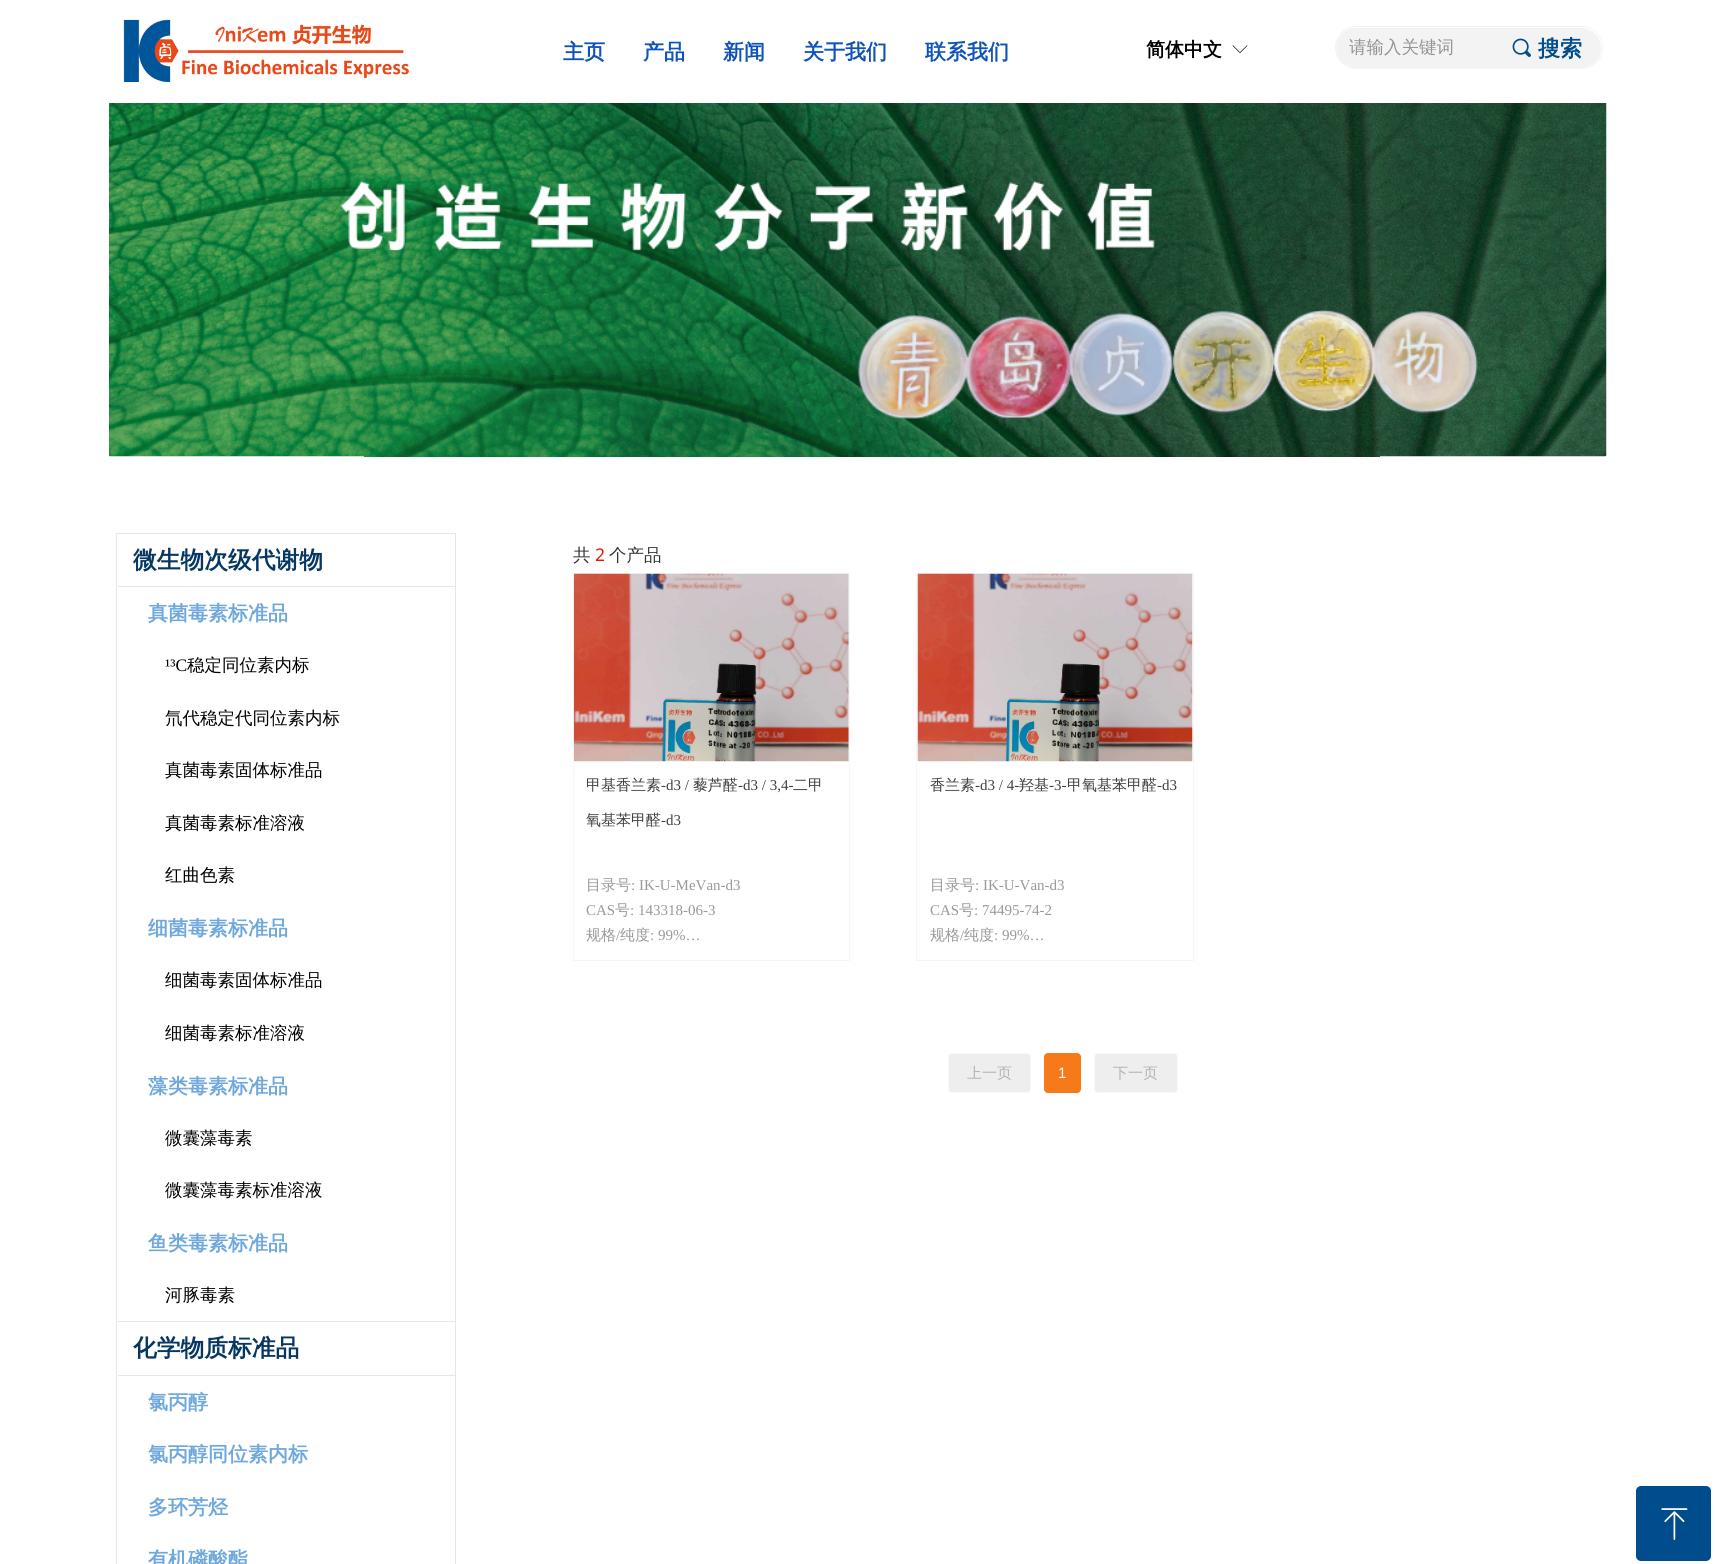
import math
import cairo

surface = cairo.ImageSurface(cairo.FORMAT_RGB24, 1715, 1564)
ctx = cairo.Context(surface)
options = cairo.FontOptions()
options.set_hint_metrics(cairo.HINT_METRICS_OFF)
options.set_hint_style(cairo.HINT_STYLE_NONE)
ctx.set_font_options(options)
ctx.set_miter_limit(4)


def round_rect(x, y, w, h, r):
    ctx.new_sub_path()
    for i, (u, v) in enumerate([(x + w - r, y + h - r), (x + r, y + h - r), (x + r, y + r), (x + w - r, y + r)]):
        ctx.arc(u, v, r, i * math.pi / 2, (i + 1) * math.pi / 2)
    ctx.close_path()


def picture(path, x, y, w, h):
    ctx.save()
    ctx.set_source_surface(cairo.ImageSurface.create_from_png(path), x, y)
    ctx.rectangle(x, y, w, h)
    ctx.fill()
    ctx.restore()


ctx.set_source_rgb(1, 1, 1)
ctx.paint()
picture("img1.png", 123, 19, 287, 63)
ctx.select_font_face("WenQuanYi Zen Hei", cairo.FONT_SLANT_NORMAL, cairo.FONT_WEIGHT_BOLD)
ctx.set_font_size(21)
ctx.set_source_rgb(0.055, 0.325, 0.725)
ctx.move_to(563, 59)
ctx.show_text("主页")
ctx.move_to(643, 59)
ctx.show_text("产品")
ctx.move_to(723, 59)
ctx.show_text("新闻")
ctx.move_to(803, 59)
ctx.show_text("关于我们")
ctx.move_to(925, 59)
ctx.show_text("联系我们")
ctx.set_font_size(19)
ctx.set_source_rgb(0, 0, 0)
ctx.move_to(1146, 56)
ctx.show_text("简体中文")
picture("img2.png", 1232, 45, 16, 8)
round_rect(1335.5, 26.5, 267, 42, 21)
ctx.set_source_rgb(0.953, 0.953, 0.953)
ctx.set_line_width(1)
ctx.stroke()
ctx.new_path()
ctx.move_to(1356, 28)
ctx.line_to(1491, 28)
ctx.line_to(1491, 68)
ctx.line_to(1356, 68)
ctx.curve_to(1345, 68, 1336, 59, 1336, 48)
ctx.curve_to(1336, 37, 1345, 28, 1356, 28)
ctx.close_path()
ctx.fill()
ctx.select_font_face("WenQuanYi Zen Hei Medium")
ctx.set_font_size(17.5)
ctx.set_source_rgb(0.576, 0.576, 0.576)
ctx.move_to(1349, 53)
ctx.show_text("请输入关键词")
ctx.set_source_rgb(0.953, 0.953, 0.953)
ctx.new_path()
ctx.move_to(1491, 28)
ctx.line_to(1581, 28)
ctx.curve_to(1592, 28, 1601, 37, 1601, 48)
ctx.curve_to(1601, 59, 1592, 68, 1581, 68)
ctx.line_to(1491, 68)
ctx.close_path()
ctx.fill()
picture("img3.png", 1512, 38, 19, 19)
ctx.select_font_face("WenQuanYi Zen Hei", cairo.FONT_SLANT_NORMAL, cairo.FONT_WEIGHT_BOLD)
ctx.set_font_size(22)
ctx.set_source_rgb(0, 0.298, 0.549)
ctx.move_to(1538, 56)
ctx.show_text("搜索")
picture("img4.png", 109, 103, 1498, 354)
ctx.rectangle(116.5, 533.5, 339, 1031)
ctx.set_source_rgb(0.906, 0.906, 0.906)
ctx.stroke()
ctx.rectangle(118, 586, 337, 1)
ctx.fill()
ctx.set_font_size(23.75)
ctx.set_source_rgb(0.027, 0.216, 0.388)
ctx.move_to(133, 568)
ctx.show_text("微生物次级代谢物")
ctx.set_font_size(20)
ctx.set_source_rgb(0.435, 0.659, 0.863)
ctx.move_to(148, 620)
ctx.show_text("真菌毒素标准品")
ctx.select_font_face("Liberation Serif")
ctx.set_font_size(17.5)
ctx.set_source_rgb(0, 0, 0)
ctx.move_to(165, 671)
ctx.show_text("¹³C")
ctx.select_font_face("WenQuanYi Zen Hei Medium")
ctx.move_to(187, 671)
ctx.show_text("稳定同位素内标")
ctx.move_to(165, 724)
ctx.show_text("氘代稳定代同位素内标")
ctx.move_to(165, 776)
ctx.show_text("真菌毒素固体标准品")
ctx.move_to(165, 829)
ctx.show_text("真菌毒素标准溶液")
ctx.move_to(165, 881)
ctx.show_text("红曲色素")
ctx.select_font_face("WenQuanYi Zen Hei", cairo.FONT_SLANT_NORMAL, cairo.FONT_WEIGHT_BOLD)
ctx.set_font_size(20)
ctx.set_source_rgb(0.435, 0.659, 0.863)
ctx.move_to(148, 935)
ctx.show_text("细菌毒素标准品")
ctx.select_font_face("WenQuanYi Zen Hei Medium")
ctx.set_font_size(17.5)
ctx.set_source_rgb(0, 0, 0)
ctx.move_to(165, 986)
ctx.show_text("细菌毒素固体标准品")
ctx.move_to(165, 1039)
ctx.show_text("细菌毒素标准溶液")
ctx.select_font_face("WenQuanYi Zen Hei", cairo.FONT_SLANT_NORMAL, cairo.FONT_WEIGHT_BOLD)
ctx.set_font_size(20)
ctx.set_source_rgb(0.435, 0.659, 0.863)
ctx.move_to(148, 1093)
ctx.show_text("藻类毒素标准品")
ctx.select_font_face("WenQuanYi Zen Hei Medium")
ctx.set_font_size(17.5)
ctx.set_source_rgb(0, 0, 0)
ctx.move_to(165, 1144)
ctx.show_text("微囊藻毒素")
ctx.move_to(165, 1196)
ctx.show_text("微囊藻毒素标准溶液")
ctx.select_font_face("WenQuanYi Zen Hei", cairo.FONT_SLANT_NORMAL, cairo.FONT_WEIGHT_BOLD)
ctx.set_font_size(20)
ctx.set_source_rgb(0.435, 0.659, 0.863)
ctx.move_to(148, 1250)
ctx.show_text("鱼类毒素标准品")
ctx.select_font_face("WenQuanYi Zen Hei Medium")
ctx.set_font_size(17.5)
ctx.set_source_rgb(0, 0, 0)
ctx.move_to(165, 1301)
ctx.show_text("河豚毒素")
ctx.set_source_rgb(0.906, 0.906, 0.906)
ctx.rectangle(118, 1321, 337, 1)
ctx.fill()
ctx.rectangle(118, 1375, 337, 1)
ctx.fill()
ctx.select_font_face("WenQuanYi Zen Hei", cairo.FONT_SLANT_NORMAL, cairo.FONT_WEIGHT_BOLD)
ctx.set_font_size(23.75)
ctx.set_source_rgb(0.027, 0.216, 0.388)
ctx.move_to(133, 1356)
ctx.show_text("化学物质标准品")
ctx.set_font_size(20)
ctx.set_source_rgb(0.435, 0.659, 0.863)
ctx.move_to(148, 1409)
ctx.show_text("氯丙醇")
ctx.move_to(148, 1461)
ctx.show_text("氯丙醇同位素内标")
ctx.move_to(148, 1514)
ctx.show_text("多环芳烃")
ctx.move_to(148, 1566)
ctx.show_text("有机磷酸酯")
ctx.select_font_face("WenQuanYi Zen Hei Medium")
ctx.set_font_size(17.5)
ctx.set_source_rgb(0.2, 0.2, 0.2)
ctx.move_to(573, 561)
ctx.show_text("共")
ctx.select_font_face("Noto Sans")
ctx.set_source_rgb(0.847, 0.106, 0)
ctx.move_to(595, 561)
ctx.show_text("2")
ctx.select_font_face("WenQuanYi Zen Hei Medium")
ctx.set_source_rgb(0.2, 0.2, 0.2)
ctx.move_to(609, 561)
ctx.show_text("个产品")
ctx.rectangle(573.5, 573.5, 276, 387)
ctx.set_source_rgb(0.961, 0.961, 0.961)
ctx.stroke()
picture("img5.png", 573, 573, 276, 189)
ctx.set_font_size(15)
ctx.set_source_rgb(0.251, 0.251, 0.251)
ctx.move_to(586, 790)
ctx.show_text("甲基香兰素")
ctx.select_font_face("Liberation Serif")
ctx.move_to(661, 790)
ctx.show_text("-d3 /")
ctx.select_font_face("WenQuanYi Zen Hei Medium")
ctx.move_to(693, 790)
ctx.show_text("藜芦醛")
ctx.select_font_face("Liberation Serif")
ctx.move_to(738, 790)
ctx.show_text("-d3 / 3,4-")
ctx.select_font_face("WenQuanYi Zen Hei Medium")
ctx.move_to(793, 790)
ctx.show_text("二甲")
ctx.move_to(586, 825)
ctx.show_text("氧基苯甲醛")
ctx.select_font_face("Liberation Serif")
ctx.move_to(661, 825)
ctx.show_text("-d3")
ctx.select_font_face("WenQuanYi Zen Hei Medium")
ctx.set_source_rgb(0.6, 0.6, 0.6)
ctx.move_to(586, 890)
ctx.show_text("目录号")
ctx.select_font_face("Liberation Serif")
ctx.move_to(631, 890)
ctx.show_text(": IK-U-MeVan-d3")
ctx.move_to(586, 915)
ctx.show_text("CAS")
ctx.select_font_face("WenQuanYi Zen Hei Medium")
ctx.move_to(615, 915)
ctx.show_text("号")
ctx.select_font_face("Liberation Serif")
ctx.move_to(630, 915)
ctx.show_text(": 143318-06-3")
ctx.select_font_face("WenQuanYi Zen Hei Medium")
ctx.move_to(586, 940)
ctx.show_text("规格")
ctx.select_font_face("Liberation Serif")
ctx.move_to(616, 940)
ctx.show_text("/")
ctx.select_font_face("WenQuanYi Zen Hei Medium")
ctx.move_to(620, 940)
ctx.show_text("纯度")
ctx.select_font_face("Liberation Serif")
ctx.move_to(650, 940)
ctx.show_text(": 99%…")
ctx.rectangle(916.5, 573.5, 277, 387)
ctx.set_source_rgb(0.961, 0.961, 0.961)
ctx.stroke()
picture("img6.png", 917, 573, 276, 189)
ctx.select_font_face("WenQuanYi Zen Hei Medium")
ctx.set_source_rgb(0.251, 0.251, 0.251)
ctx.move_to(930, 790)
ctx.show_text("香兰素")
ctx.select_font_face("Liberation Serif")
ctx.move_to(975, 790)
ctx.show_text("-d3 / 4-")
ctx.select_font_face("WenQuanYi Zen Hei Medium")
ctx.move_to(1019, 790)
ctx.show_text("羟基")
ctx.select_font_face("Liberation Serif")
ctx.move_to(1049, 790)
ctx.show_text("-3-")
ctx.select_font_face("WenQuanYi Zen Hei Medium")
ctx.move_to(1067, 790)
ctx.show_text("甲氧基苯甲醛")
ctx.select_font_face("Liberation Serif")
ctx.move_to(1157, 790)
ctx.show_text("-d3")
ctx.select_font_face("WenQuanYi Zen Hei Medium")
ctx.set_source_rgb(0.6, 0.6, 0.6)
ctx.move_to(930, 890)
ctx.show_text("目录号")
ctx.select_font_face("Liberation Serif")
ctx.move_to(975, 890)
ctx.show_text(": IK-U-Van-d3")
ctx.move_to(930, 915)
ctx.show_text("CAS")
ctx.select_font_face("WenQuanYi Zen Hei Medium")
ctx.move_to(959, 915)
ctx.show_text("号")
ctx.select_font_face("Liberation Serif")
ctx.move_to(974, 915)
ctx.show_text(": 74495-74-2")
ctx.select_font_face("WenQuanYi Zen Hei Medium")
ctx.move_to(930, 940)
ctx.show_text("规格")
ctx.select_font_face("Liberation Serif")
ctx.move_to(960, 940)
ctx.show_text("/")
ctx.select_font_face("WenQuanYi Zen Hei Medium")
ctx.move_to(964, 940)
ctx.show_text("纯度")
ctx.select_font_face("Liberation Serif")
ctx.move_to(994, 940)
ctx.show_text(": 99%…")
ctx.set_source_rgb(0.933, 0.933, 0.933)
round_rect(948.5, 1053.5, 82, 39, 3.5)
ctx.fill_preserve()
ctx.set_source_rgb(0.969, 0.969, 0.969)
ctx.stroke()
ctx.select_font_face("WenQuanYi Zen Hei Medium")
ctx.set_source_rgb(0.702, 0.702, 0.702)
ctx.move_to(967, 1078)
ctx.show_text("上一页")
ctx.set_source_rgb(0.961, 0.478, 0.098)
round_rect(1044.5, 1053.5, 36, 39, 3.5)
ctx.fill_preserve()
ctx.stroke()
ctx.select_font_face("Liberation Sans")
ctx.set_source_rgb(1, 1, 1)
ctx.move_to(1058, 1078)
ctx.show_text("1")
ctx.set_source_rgb(0.933, 0.933, 0.933)
round_rect(1094.5, 1053.5, 83, 39, 3.5)
ctx.fill_preserve()
ctx.set_source_rgb(0.969, 0.969, 0.969)
ctx.stroke()
ctx.select_font_face("WenQuanYi Zen Hei Medium")
ctx.set_source_rgb(0.702, 0.702, 0.702)
ctx.move_to(1113, 1078)
ctx.show_text("下一页")
ctx.set_source_rgb(0, 0.298, 0.549)
round_rect(1636, 1486, 75, 75, 5)
ctx.fill()
picture("img7.png", 1661, 1508, 27, 32)
surface.write_to_png("page.png")
